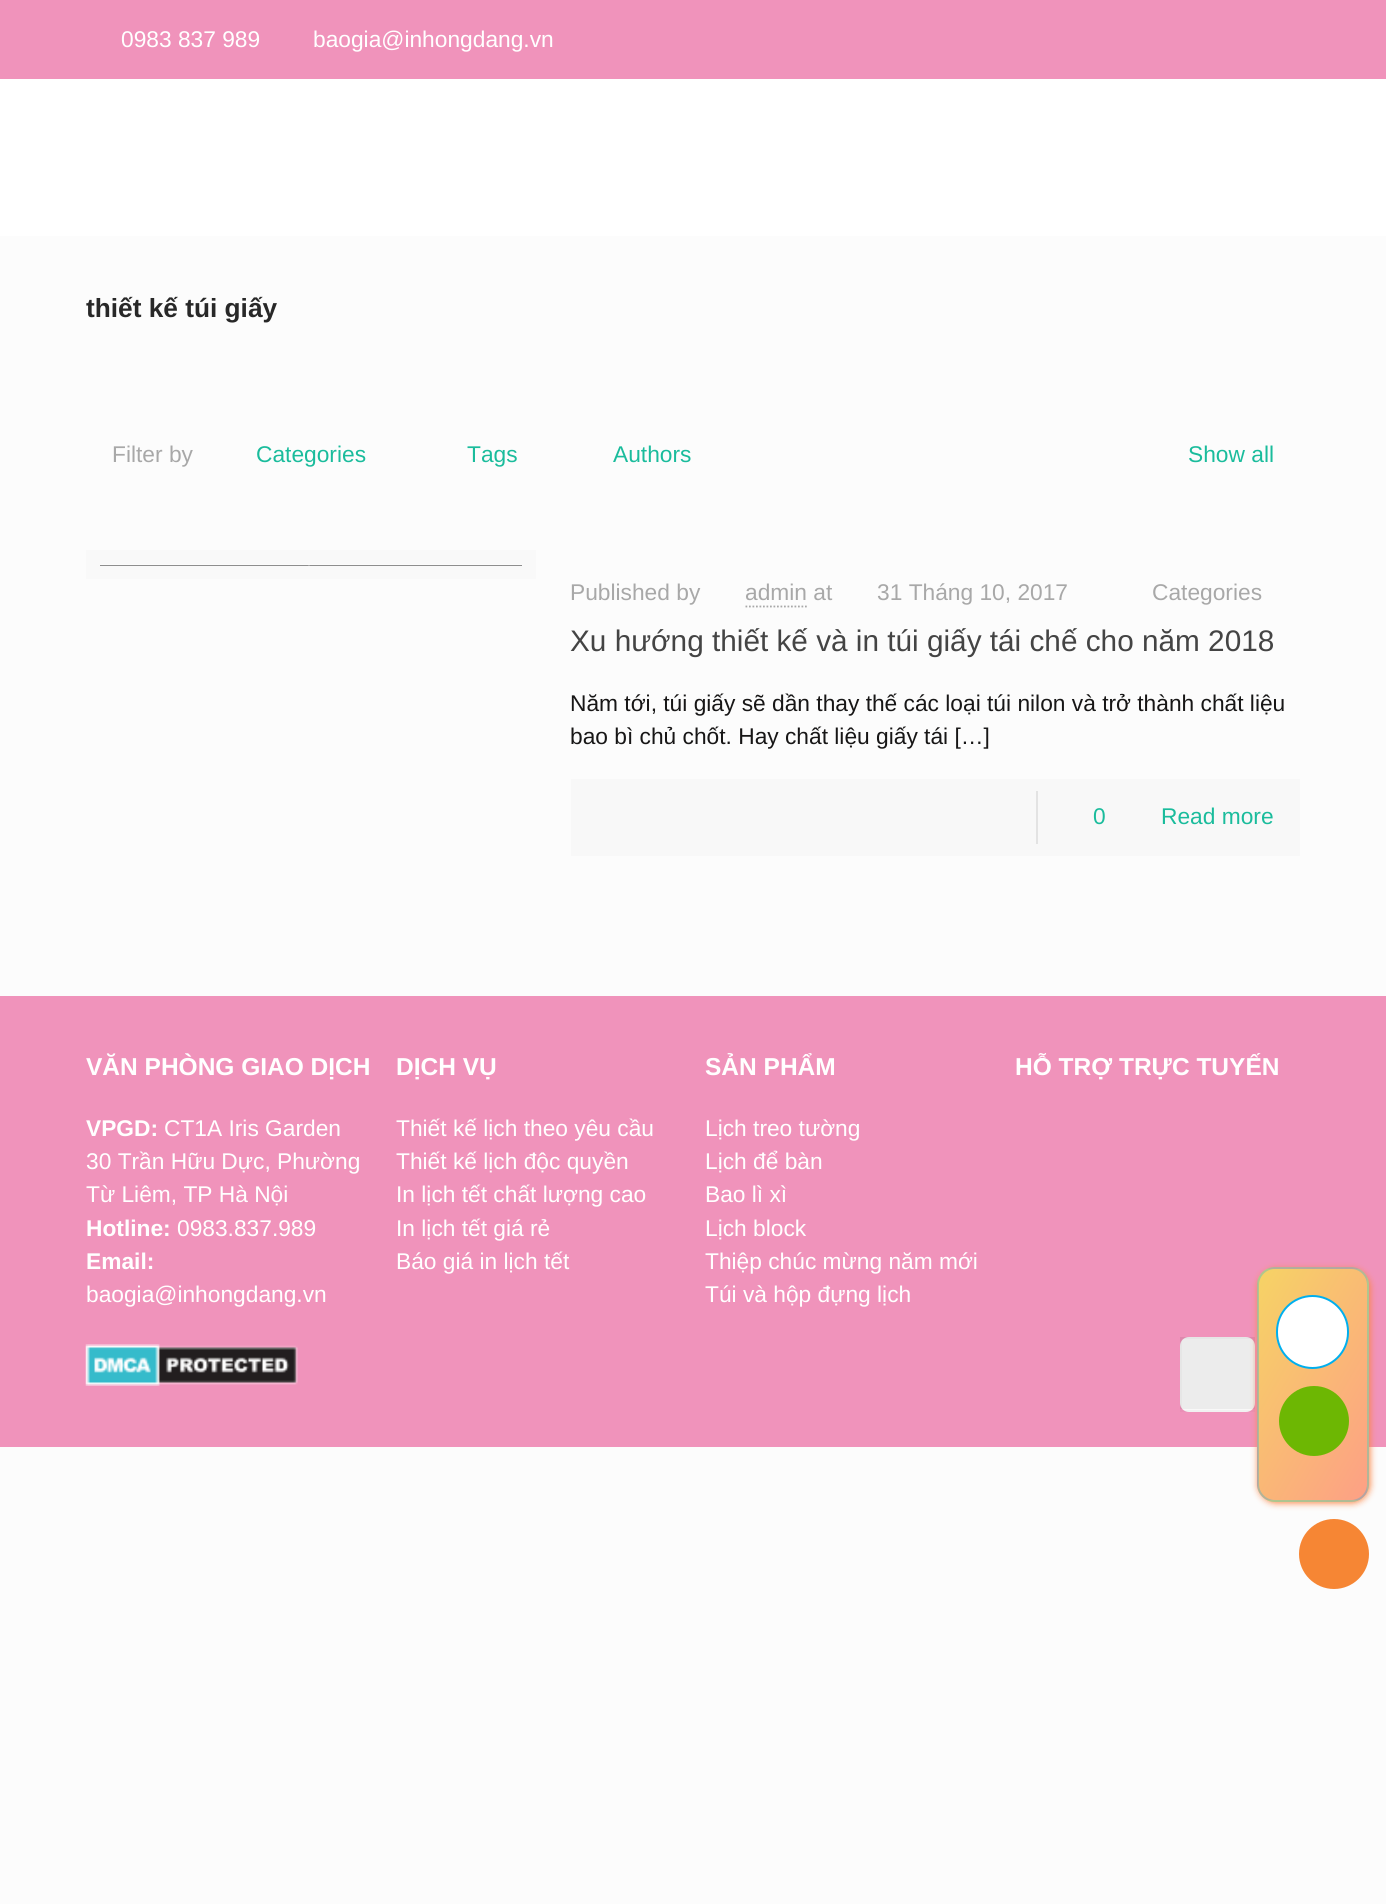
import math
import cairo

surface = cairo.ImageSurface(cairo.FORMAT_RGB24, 1386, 1904)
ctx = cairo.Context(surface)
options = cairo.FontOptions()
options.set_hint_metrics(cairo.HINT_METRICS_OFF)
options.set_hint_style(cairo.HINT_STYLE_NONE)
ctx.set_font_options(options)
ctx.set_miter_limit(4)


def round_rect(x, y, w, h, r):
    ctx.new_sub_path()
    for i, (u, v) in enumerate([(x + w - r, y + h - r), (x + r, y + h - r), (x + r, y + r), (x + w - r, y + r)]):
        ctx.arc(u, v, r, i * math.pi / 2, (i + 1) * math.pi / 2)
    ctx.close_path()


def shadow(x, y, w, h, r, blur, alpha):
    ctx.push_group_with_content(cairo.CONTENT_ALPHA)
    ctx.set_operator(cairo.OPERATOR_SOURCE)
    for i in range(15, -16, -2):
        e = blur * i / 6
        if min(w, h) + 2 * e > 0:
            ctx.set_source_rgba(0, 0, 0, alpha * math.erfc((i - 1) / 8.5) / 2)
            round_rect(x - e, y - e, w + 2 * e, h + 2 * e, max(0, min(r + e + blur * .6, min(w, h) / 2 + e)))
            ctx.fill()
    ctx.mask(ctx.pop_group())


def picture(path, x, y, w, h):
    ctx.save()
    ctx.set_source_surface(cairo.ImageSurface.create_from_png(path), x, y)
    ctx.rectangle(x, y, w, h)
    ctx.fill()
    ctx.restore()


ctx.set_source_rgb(0.988, 0.988, 0.988)
ctx.paint()
ctx.set_source_rgb(0.941, 0.576, 0.733)
ctx.rectangle(0, 0, 1386, 79)
ctx.fill()
ctx.select_font_face("Liberation Sans")
ctx.set_font_size(22.75)
ctx.set_source_rgb(1, 1, 1)
ctx.move_to(121, 47)
ctx.show_text("0983 837 989")
ctx.move_to(313, 47)
ctx.show_text("baogia@inhongdang.vn")
ctx.rectangle(0, 79, 1386, 157)
ctx.fill()
ctx.select_font_face("Liberation Sans", cairo.FONT_SLANT_NORMAL, cairo.FONT_WEIGHT_BOLD)
ctx.set_font_size(26.25)
ctx.set_source_rgb(0.157, 0.157, 0.157)
ctx.move_to(86, 317)
ctx.show_text("thiết kế túi giấy")
ctx.select_font_face("Liberation Sans")
ctx.set_font_size(22.75)
ctx.set_source_rgb(0.659, 0.659, 0.659)
ctx.move_to(112, 462)
ctx.show_text("Filter by")
ctx.set_source_rgb(0.102, 0.737, 0.612)
ctx.move_to(256, 462)
ctx.show_text("Categories")
ctx.move_to(467, 462)
ctx.show_text("Tags")
ctx.move_to(613, 462)
ctx.show_text("Authors")
ctx.move_to(1188, 462)
ctx.show_text("Show all")
ctx.rectangle(93, 557, 436, 15)
ctx.set_source_rgb(0.973, 0.973, 0.973)
ctx.set_line_width(14)
ctx.stroke()
ctx.set_source_rgb(0.557, 0.557, 0.557)
ctx.rectangle(100, 565, 422, 1)
ctx.fill()
ctx.set_source_rgb(0.647, 0.647, 0.647)
ctx.rectangle(308, 565, 2, 1)
ctx.fill()
ctx.set_source_rgb(0.659, 0.659, 0.659)
ctx.move_to(570, 600)
ctx.show_text("Published by")
ctx.move_to(745, 600)
ctx.show_text("admin at")
ctx.new_path()
ctx.move_to(745.5, 606.5)
ctx.line_to(807, 606.5)
ctx.set_line_width(1.8)
ctx.set_dash([1.75, 1.75])
ctx.stroke()
ctx.move_to(877, 600)
ctx.show_text("31 Tháng 10, 2017")
ctx.move_to(1152, 600)
ctx.show_text("Categories")
ctx.set_font_size(29.75)
ctx.set_source_rgb(0.267, 0.267, 0.267)
ctx.move_to(570, 651)
ctx.show_text("Xu hướng thiết kế và in túi giấy tái chế cho năm 2018")
ctx.set_font_size(22.75)
ctx.set_source_rgb(0.09, 0.086, 0.086)
ctx.move_to(570, 711)
ctx.show_text("Năm tới, túi giấy sẽ dần thay thế các loại túi nilon và trở thành chất liệu")
ctx.move_to(570, 744)
ctx.show_text("bao bì chủ chốt. Hay chất liệu giấy tái […]")
ctx.set_source_rgb(0.969, 0.969, 0.969)
ctx.rectangle(571, 779, 729, 77)
ctx.fill()
ctx.set_source_rgb(0.89, 0.89, 0.89)
ctx.rectangle(1036, 791, 2, 53)
ctx.fill()
ctx.set_source_rgb(0.102, 0.737, 0.612)
ctx.move_to(1093, 824)
ctx.show_text("0")
ctx.move_to(1161, 824)
ctx.show_text("Read more")
ctx.set_source_rgb(0.941, 0.576, 0.733)
ctx.rectangle(0, 996, 1386, 451)
ctx.fill()
ctx.select_font_face("Liberation Sans", cairo.FONT_SLANT_NORMAL, cairo.FONT_WEIGHT_BOLD)
ctx.set_font_size(24.5)
ctx.set_source_rgb(1, 1, 1)
ctx.move_to(86, 1075)
ctx.show_text("VĂN PHÒNG GIAO DỊCH")
ctx.set_font_size(22.75)
ctx.move_to(86, 1136)
ctx.show_text("VPGD:")
ctx.select_font_face("Liberation Sans")
ctx.move_to(164, 1136)
ctx.show_text("CT1A Iris Garden")
ctx.move_to(86, 1169)
ctx.show_text("30 Trần Hữu Dực, Phường")
ctx.move_to(86, 1202)
ctx.show_text("Từ Liêm, TP Hà Nội")
ctx.select_font_face("Liberation Sans", cairo.FONT_SLANT_NORMAL, cairo.FONT_WEIGHT_BOLD)
ctx.move_to(86, 1236)
ctx.show_text("Hotline:")
ctx.select_font_face("Liberation Sans")
ctx.move_to(177, 1236)
ctx.show_text("0983.837.989")
ctx.select_font_face("Liberation Sans", cairo.FONT_SLANT_NORMAL, cairo.FONT_WEIGHT_BOLD)
ctx.move_to(86, 1269)
ctx.show_text("Email:")
ctx.select_font_face("Liberation Sans")
ctx.move_to(86, 1302)
ctx.show_text("baogia@inhongdang.vn")
picture("img1.png", 85, 1344, 213, 42)
ctx.select_font_face("Liberation Sans", cairo.FONT_SLANT_NORMAL, cairo.FONT_WEIGHT_BOLD)
ctx.set_font_size(24.5)
ctx.move_to(396, 1075)
ctx.show_text("DỊCH VỤ")
ctx.select_font_face("Liberation Sans")
ctx.set_font_size(22.75)
ctx.move_to(396, 1136)
ctx.show_text("Thiết kế lịch theo yêu cầu")
ctx.move_to(396, 1169)
ctx.show_text("Thiết kế lịch độc quyền")
ctx.move_to(396, 1202)
ctx.show_text("In lịch tết chất lượng cao")
ctx.move_to(396, 1236)
ctx.show_text("In lịch tết giá rẻ")
ctx.move_to(396, 1269)
ctx.show_text("Báo giá in lịch tết")
ctx.select_font_face("Liberation Sans", cairo.FONT_SLANT_NORMAL, cairo.FONT_WEIGHT_BOLD)
ctx.set_font_size(24.5)
ctx.move_to(705, 1075)
ctx.show_text("SẢN PHẨM")
ctx.select_font_face("Liberation Sans")
ctx.set_font_size(22.75)
ctx.move_to(705, 1136)
ctx.show_text("Lịch treo tường")
ctx.move_to(705, 1169)
ctx.show_text("Lịch để bàn")
ctx.move_to(705, 1202)
ctx.show_text("Bao lì xì")
ctx.move_to(705, 1236)
ctx.show_text("Lịch block")
ctx.move_to(705, 1269)
ctx.show_text("Thiệp chúc mừng năm mới")
ctx.move_to(705, 1302)
ctx.show_text("Túi và hộp đựng lịch")
ctx.select_font_face("Liberation Sans", cairo.FONT_SLANT_NORMAL, cairo.FONT_WEIGHT_BOLD)
ctx.set_font_size(24.5)
ctx.move_to(1015, 1075)
ctx.show_text("HỖ TRỢ TRỰC TUYẾN")
ctx.set_source_rgb(0.969, 0.969, 0.969)
round_rect(1180, 1337, 75, 75, 9)
ctx.fill()
ctx.rectangle(1181, 1338, 73, 73)
ctx.set_source_rgba(0, 0, 0, 0.03)
ctx.set_line_width(2)
ctx.set_dash([])
ctx.stroke()
ctx.set_source_rgba(0, 0, 0, 0.05)
ctx.rectangle(1180, 1337, 75, 72)
ctx.fill()
ctx.set_source_rgb(0.984, 0.522, 0.263)
shadow(1258, 1269, 112, 234, 18, 3.5, 1)
ctx.save()
round_rect(1257, 1267, 112, 235, 18)
ctx.clip()
gradient = cairo.LinearGradient(1222, 1101, 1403, 1206)
gradient.add_color_stop_rgba(0, 0.965, 0.827, 0.396, 1)
gradient.add_color_stop_rgba(1, 0.992, 0.627, 0.522, 1)
ctx.set_source(gradient)
ctx.rectangle(1267, 1267, 100, 2)
ctx.fill()
gradient = cairo.LinearGradient(1113, 1332, 1295, 1437)
gradient.add_color_stop_rgba(0, 0.965, 0.827, 0.396, 1)
gradient.add_color_stop_rgba(1, 0.992, 0.627, 0.522, 1)
ctx.set_source(gradient)
ctx.rectangle(1257, 1279, 1, 211)
ctx.fill()
gradient = cairo.LinearGradient(1222, 1332, 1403, 1437)
gradient.add_color_stop_rgba(0, 0.965, 0.827, 0.396, 1)
gradient.add_color_stop_rgba(1, 0.992, 0.627, 0.522, 1)
ctx.set_source(gradient)
ctx.rectangle(1258, 1269, 109, 231)
ctx.fill()
gradient = cairo.LinearGradient(1330, 1332, 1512, 1437)
gradient.add_color_stop_rgba(0, 0.965, 0.827, 0.396, 1)
gradient.add_color_stop_rgba(1, 0.992, 0.627, 0.522, 1)
ctx.set_source(gradient)
ctx.rectangle(1367, 1269, 2, 231)
ctx.fill()
gradient = cairo.LinearGradient(1222, 1563, 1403, 1668)
gradient.add_color_stop_rgba(0, 0.965, 0.827, 0.396, 1)
gradient.add_color_stop_rgba(1, 0.992, 0.627, 0.522, 1)
ctx.set_source(gradient)
ctx.rectangle(1267, 1500, 100, 2)
ctx.fill()
ctx.restore()
round_rect(1258, 1268, 110, 233, 17)
ctx.set_source_rgba(0, 0.686, 0.933, 0.29)
ctx.stroke()
ctx.set_source_rgb(1, 1, 1)
round_rect(1277, 1296, 71, 72, 35.5)
ctx.fill_preserve()
ctx.set_source_rgb(0, 0.686, 0.933)
ctx.stroke()
ctx.set_source_rgb(0.427, 0.718, 0.012)
ctx.arc(1314, 1421, 35, 0, 2 * math.pi)
ctx.fill()
ctx.set_source_rgb(0.961, 0.525, 0.204)
ctx.arc(1334, 1554, 35, 0, 2 * math.pi)
ctx.fill()
surface.write_to_png("page.png")
